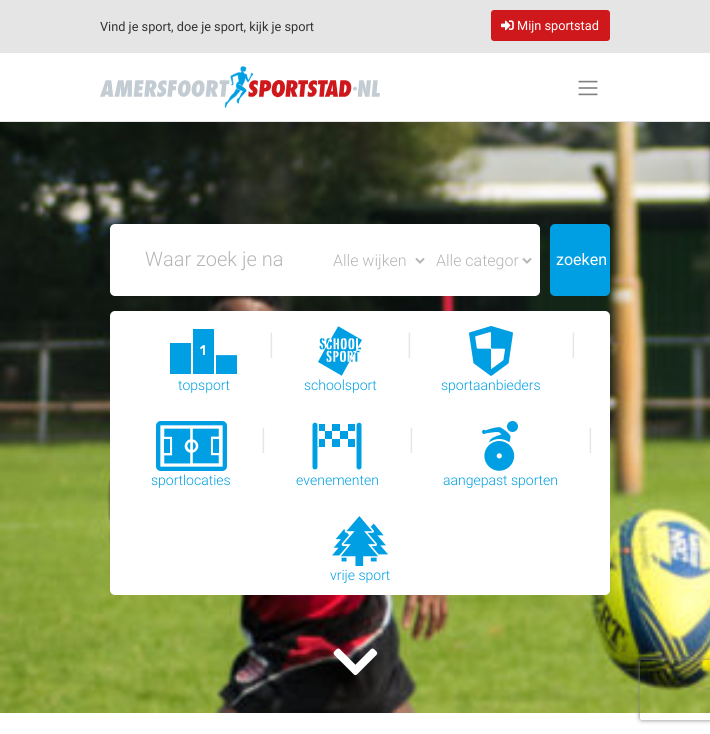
import math
import cairo

surface = cairo.ImageSurface(cairo.FORMAT_RGB24, 710, 734)
ctx = cairo.Context(surface)
options = cairo.FontOptions()
options.set_hint_metrics(cairo.HINT_METRICS_OFF)
options.set_hint_style(cairo.HINT_STYLE_NONE)
ctx.set_font_options(options)
ctx.set_miter_limit(4)


def round_rect(x, y, w, h, r):
    ctx.new_sub_path()
    for i, (u, v) in enumerate([(x + w - r, y + h - r), (x + r, y + h - r), (x + r, y + r), (x + w - r, y + r)]):
        ctx.arc(u, v, r, i * math.pi / 2, (i + 1) * math.pi / 2)
    ctx.close_path()


def shadow(x, y, w, h, r, blur, alpha):
    ctx.push_group_with_content(cairo.CONTENT_ALPHA)
    ctx.set_operator(cairo.OPERATOR_SOURCE)
    for i in range(15, -16, -2):
        e = blur * i / 6
        if min(w, h) + 2 * e > 0:
            ctx.set_source_rgba(0, 0, 0, alpha * math.erfc((i - 1) / 8.5) / 2)
            round_rect(x - e, y - e, w + 2 * e, h + 2 * e, max(0, min(r + e + blur * .6, min(w, h) / 2 + e)))
            ctx.fill()
    ctx.mask(ctx.pop_group())


def picture(path, x, y, w, h):
    ctx.save()
    ctx.set_source_surface(cairo.ImageSurface.create_from_png(path), x, y)
    ctx.rectangle(x, y, w, h)
    ctx.fill()
    ctx.restore()


ctx.set_source_rgb(1, 1, 1)
ctx.paint()
ctx.set_source_rgb(0.898, 0.898, 0.898)
ctx.rectangle(0, 0, 710, 53)
ctx.fill()
ctx.select_font_face("Roboto")
ctx.set_font_size(12.75)
ctx.set_source_rgb(0.2, 0.2, 0.2)
ctx.move_to(100, 31)
ctx.show_text("Vind je sport, doe je sport, kijk je sport")
ctx.set_source_rgb(0.812, 0.094, 0.11)
round_rect(491, 10, 119, 31, 3)
ctx.fill()
picture("img1.png", 501, 20, 13, 11)
ctx.set_source_rgb(1, 1, 1)
ctx.move_to(517, 30)
ctx.show_text("Mijn sportstad")
ctx.set_source_rgb(0.902, 0.902, 0.902)
ctx.rectangle(0, 121, 710, 1)
ctx.fill()
picture("img2.png", 100, 66, 280, 42)
picture("img3.png", 578, 80, 20, 16)
picture("img4.png", 0, 122, 710, 591)
ctx.set_source_rgb(1, 1, 1)
round_rect(110, 224, 430, 72, 5)
ctx.fill()
ctx.select_font_face("Roboto Light")
ctx.set_font_size(20)
ctx.set_source_rgb(0.71, 0.71, 0.71)
ctx.move_to(145, 266)
ctx.show_text("Waar zoek je na")
ctx.new_path()
ctx.move_to(416, 258.5)
ctx.line_to(420, 262.5)
ctx.line_to(424, 258.5)
ctx.stroke()
ctx.set_font_size(16)
ctx.move_to(333, 266)
ctx.show_text("Alle wijken")
ctx.new_path()
ctx.move_to(523, 258.5)
ctx.line_to(527, 262.5)
ctx.line_to(531, 258.5)
ctx.stroke()
ctx.move_to(436, 266)
ctx.show_text("Alle categor")
ctx.set_source_rgb(0, 0.624, 0.89)
round_rect(550, 224, 60, 72, 5)
ctx.fill()
ctx.select_font_face("Roboto")
ctx.set_source_rgb(1, 1, 1)
ctx.move_to(556, 265)
ctx.show_text("zoeken")
round_rect(110, 311, 500, 284, 5)
ctx.fill()
ctx.select_font_face("Roboto Light")
ctx.set_font_size(30)
ctx.set_source_rgb(0.902, 0.902, 0.902)
ctx.move_to(268, 354)
ctx.show_text("|")
ctx.move_to(406, 354)
ctx.show_text("|")
ctx.move_to(570, 354)
ctx.show_text("|")
picture("img5.png", 170, 329, 67, 45)
ctx.set_font_size(14)
ctx.set_source_rgb(0, 0.624, 0.89)
ctx.move_to(178, 390)
ctx.show_text("topsport")
picture("img6.png", 318, 326, 44, 50)
ctx.move_to(304, 390)
ctx.show_text("schoolsport")
picture("img7.png", 469, 326, 44, 50)
ctx.move_to(441, 390)
ctx.show_text("sportaanbieders")
ctx.set_font_size(30)
ctx.set_source_rgb(0.902, 0.902, 0.902)
ctx.move_to(260, 449)
ctx.show_text("|")
ctx.move_to(408, 449)
ctx.show_text("|")
ctx.move_to(587, 449)
ctx.show_text("|")
picture("img8.png", 156, 421, 71, 50)
ctx.set_font_size(14)
ctx.set_source_rgb(0, 0.624, 0.89)
ctx.move_to(151, 485)
ctx.show_text("sportlocaties")
picture("img9.png", 312, 422, 50, 48)
ctx.move_to(296, 485)
ctx.show_text("evenementen")
picture("img10.png", 482, 421, 36, 50)
ctx.move_to(443, 485)
ctx.show_text("aangepast sporten")
picture("img11.png", 332, 516, 56, 50)
ctx.move_to(330, 580)
ctx.show_text("vrije sport")
picture("img12.png", 333, 648, 45, 28)
ctx.save()
ctx.set_fill_rule(cairo.FILL_RULE_EVEN_ODD)
ctx.new_path()
ctx.move_to(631, 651)
ctx.line_to(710, 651)
ctx.line_to(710, 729)
ctx.line_to(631, 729)
ctx.close_path()
ctx.move_to(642, 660)
ctx.line_to(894, 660)
ctx.curve_to(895, 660, 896, 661, 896, 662)
ctx.line_to(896, 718)
ctx.curve_to(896, 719, 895, 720, 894, 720)
ctx.line_to(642, 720)
ctx.curve_to(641, 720, 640, 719, 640, 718)
ctx.line_to(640, 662)
ctx.curve_to(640, 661, 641, 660, 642, 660)
ctx.close_path()
ctx.clip()
ctx.set_source_rgb(0.502, 0.502, 0.502)
shadow(640, 660, 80, 60, 2, 2.5, 1)
ctx.restore()
surface.write_to_png("page.png")
